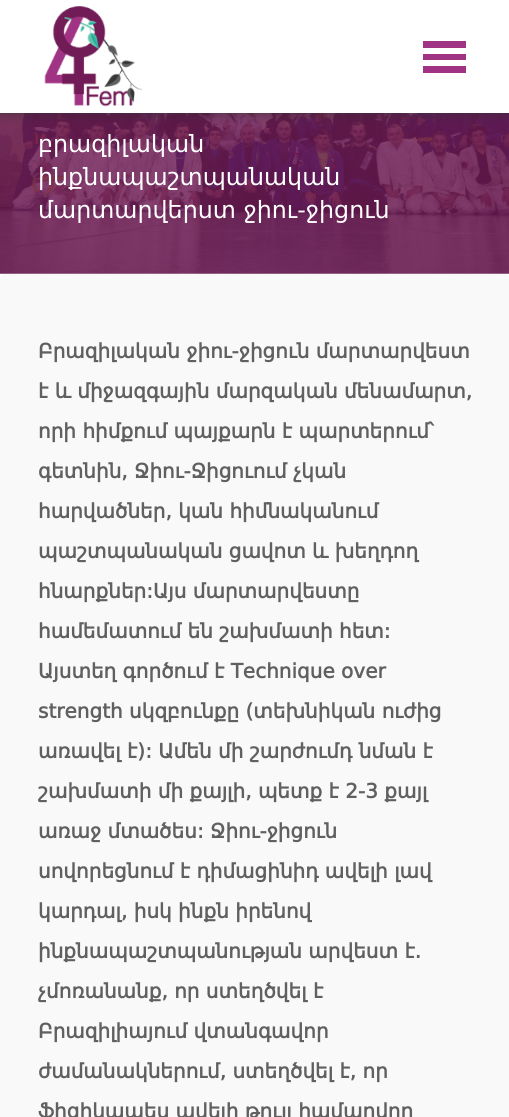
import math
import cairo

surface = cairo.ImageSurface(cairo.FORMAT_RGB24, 509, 1117)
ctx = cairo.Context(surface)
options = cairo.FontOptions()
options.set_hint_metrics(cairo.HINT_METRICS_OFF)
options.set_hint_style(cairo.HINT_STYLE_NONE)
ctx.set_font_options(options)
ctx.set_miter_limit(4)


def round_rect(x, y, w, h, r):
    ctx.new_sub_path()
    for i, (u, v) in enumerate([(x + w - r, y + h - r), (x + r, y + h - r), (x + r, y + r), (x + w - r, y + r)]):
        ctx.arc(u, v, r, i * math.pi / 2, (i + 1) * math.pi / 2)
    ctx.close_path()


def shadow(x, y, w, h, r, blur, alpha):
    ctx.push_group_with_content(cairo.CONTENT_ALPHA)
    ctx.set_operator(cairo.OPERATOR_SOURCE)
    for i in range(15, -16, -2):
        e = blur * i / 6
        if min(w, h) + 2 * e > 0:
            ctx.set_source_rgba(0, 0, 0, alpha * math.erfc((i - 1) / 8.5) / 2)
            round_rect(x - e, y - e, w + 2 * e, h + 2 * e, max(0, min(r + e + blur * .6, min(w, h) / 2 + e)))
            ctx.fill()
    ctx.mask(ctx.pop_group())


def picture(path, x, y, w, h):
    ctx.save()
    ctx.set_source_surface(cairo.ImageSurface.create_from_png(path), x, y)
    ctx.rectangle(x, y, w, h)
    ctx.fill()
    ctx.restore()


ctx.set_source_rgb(1, 1, 1)
ctx.paint()
picture("img2.png", 0, 113, 509, 161)
ctx.set_source_rgb(0.196, 0.196, 0.196)
shadow(0, 0, 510, 113, 0, 5.5, 0.75)
ctx.set_source_rgb(1, 1, 1)
ctx.rectangle(0, 0, 509, 113)
ctx.fill()
picture("img1.png", 44, 6, 98, 101)
ctx.set_source_rgb(0.627, 0.2, 0.518)
ctx.rectangle(423, 41, 43, 7)
ctx.fill()
ctx.rectangle(423, 54, 43, 6)
ctx.fill()
ctx.rectangle(423, 66, 43, 7)
ctx.fill()
ctx.select_font_face("DejaVu Sans")
ctx.set_font_size(23.75)
ctx.set_source_rgb(1, 1, 1)
ctx.move_to(38, 152)
ctx.show_text("բրազիլական")
ctx.move_to(38, 185)
ctx.show_text("ինքնապաշտպանական")
ctx.move_to(38, 218)
ctx.show_text("մարտարվերստ ջիու-ջիցուն")
ctx.set_source_rgb(0.976, 0.976, 0.976)
round_rect(0, 274, 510, 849, 6)
ctx.fill()
ctx.select_font_face("DejaVu Sans", cairo.FONT_SLANT_NORMAL, cairo.FONT_WEIGHT_BOLD)
ctx.set_font_size(20)
ctx.set_source_rgb(0.376, 0.376, 0.376)
ctx.move_to(38, 358)
ctx.show_text("Բրազիլական ջիու-ջիցուն մարտարվեստ")
ctx.move_to(38, 398)
ctx.show_text("է և միջազգային մարզական մենամարտ,")
ctx.move_to(38, 438)
ctx.show_text("որի հիմքում պայքարն է պարտերում՝")
ctx.move_to(38, 478)
ctx.show_text("գետնին, Ջիու-Ջիցուում չկան")
ctx.move_to(38, 518)
ctx.show_text("հարվածներ, կան հիմնականում")
ctx.move_to(38, 558)
ctx.show_text("պաշտպանական ցավոտ և խեղդող")
ctx.move_to(38, 598)
ctx.show_text("հնարքներ:Այս մարտարվեստը")
ctx.move_to(38, 638)
ctx.show_text("համեմատում են շախմատի հետ:")
ctx.move_to(38, 678)
ctx.show_text("Այստեղ գործում է Technique over")
ctx.move_to(38, 718)
ctx.show_text("strength սկզբունքը (տեխնիկան ուժից")
ctx.move_to(38, 758)
ctx.show_text("առավել է): Ամեն մի շարժումդ նման է")
ctx.move_to(38, 798)
ctx.show_text("շախմատի մի քայլի, պետք է 2-3 քայլ")
ctx.move_to(38, 838)
ctx.show_text("առաջ մտածես: Ջիու-ջիցուն")
ctx.move_to(38, 878)
ctx.show_text("սովորեցնում է դիմացինիդ ավելի լավ")
ctx.move_to(38, 918)
ctx.show_text("կարդալ, իսկ ինքն իրենով")
ctx.move_to(38, 958)
ctx.show_text("ինքնապաշտպանության արվեստ է.")
ctx.move_to(38, 998)
ctx.show_text("չմոռանանք, որ ստեղծվել է")
ctx.move_to(38, 1038)
ctx.show_text("Բրազիլիայում վտանգավոր")
ctx.move_to(38, 1078)
ctx.show_text("ժամանակներում, ստեղծվել է, որ")
ctx.move_to(38, 1118)
ctx.show_text("ֆիզիկապես ավելի թույլ համարվող")
surface.write_to_png("page.png")
